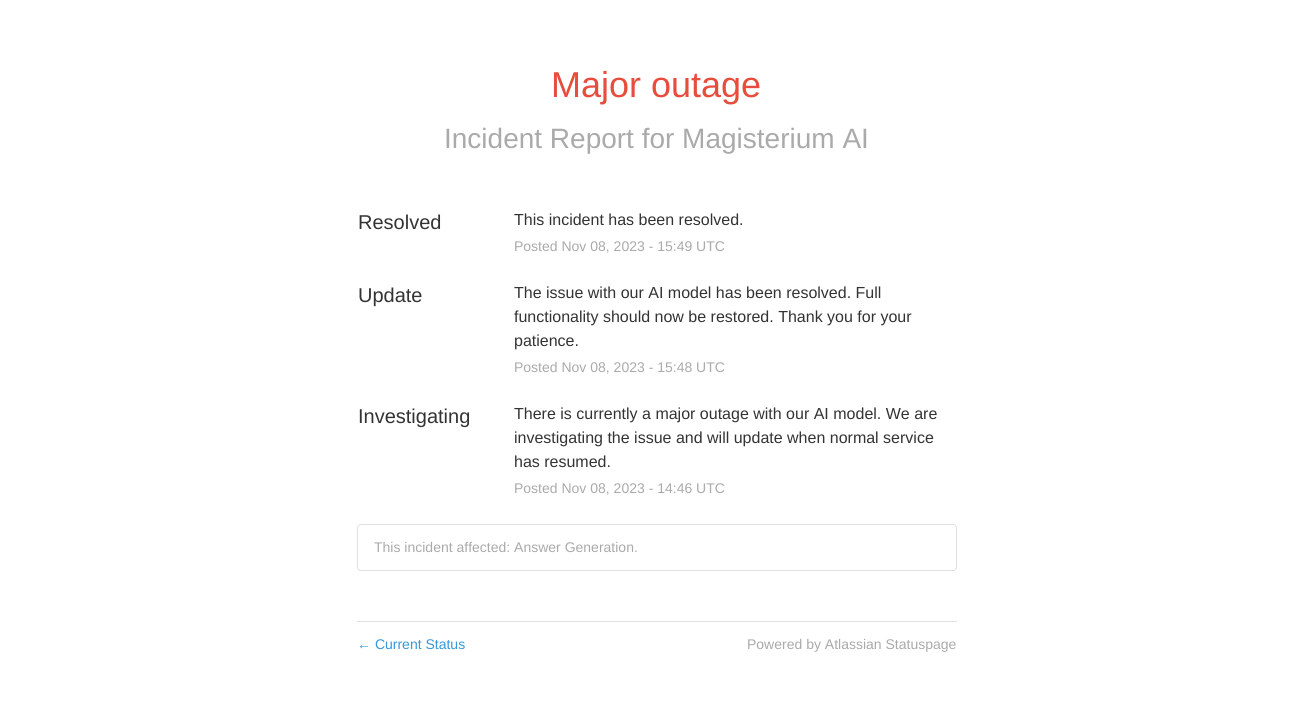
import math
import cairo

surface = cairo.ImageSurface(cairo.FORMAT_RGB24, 1313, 710)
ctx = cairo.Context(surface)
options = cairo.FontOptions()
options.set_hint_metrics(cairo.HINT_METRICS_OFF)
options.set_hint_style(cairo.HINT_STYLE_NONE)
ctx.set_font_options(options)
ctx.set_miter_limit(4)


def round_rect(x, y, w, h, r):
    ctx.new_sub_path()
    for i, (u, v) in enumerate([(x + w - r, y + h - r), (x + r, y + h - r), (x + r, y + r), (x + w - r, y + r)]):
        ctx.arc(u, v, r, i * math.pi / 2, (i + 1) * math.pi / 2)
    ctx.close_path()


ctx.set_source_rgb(1, 1, 1)
ctx.paint()
ctx.select_font_face("Liberation Sans")
ctx.set_font_size(36)
ctx.set_source_rgb(0.906, 0.298, 0.235)
ctx.move_to(551, 97)
ctx.show_text("Major outage")
ctx.set_font_size(28)
ctx.set_source_rgb(0.667, 0.667, 0.667)
ctx.move_to(444, 148)
ctx.show_text("Incident Report for Magisterium AI")
ctx.set_font_size(20)
ctx.set_source_rgb(0.2, 0.2, 0.2)
ctx.move_to(358, 229)
ctx.show_text("Resolved")
ctx.set_font_size(16)
ctx.move_to(514, 225)
ctx.show_text("This incident has been resolved.")
ctx.set_font_size(14)
ctx.set_source_rgb(0.667, 0.667, 0.667)
ctx.move_to(514, 251)
ctx.show_text("Posted Nov 08, 2023 - 15:49 UTC")
ctx.set_font_size(20)
ctx.set_source_rgb(0.2, 0.2, 0.2)
ctx.move_to(358, 302)
ctx.show_text("Update")
ctx.set_font_size(16)
ctx.move_to(514, 298)
ctx.show_text("The issue with our AI model has been resolved. Full")
ctx.move_to(514, 322)
ctx.show_text("functionality should now be restored. Thank you for your")
ctx.move_to(514, 346)
ctx.show_text("patience.")
ctx.set_font_size(14)
ctx.set_source_rgb(0.667, 0.667, 0.667)
ctx.move_to(514, 372)
ctx.show_text("Posted Nov 08, 2023 - 15:48 UTC")
ctx.set_font_size(20)
ctx.set_source_rgb(0.2, 0.2, 0.2)
ctx.move_to(358, 423)
ctx.show_text("Investigating")
ctx.set_font_size(16)
ctx.move_to(514, 419)
ctx.show_text("There is currently a major outage with our AI model. We are")
ctx.move_to(514, 443)
ctx.show_text("investigating the issue and will update when normal service")
ctx.move_to(514, 467)
ctx.show_text("has resumed.")
ctx.set_font_size(14)
ctx.set_source_rgb(0.667, 0.667, 0.667)
ctx.move_to(514, 493)
ctx.show_text("Posted Nov 08, 2023 - 14:46 UTC")
round_rect(357.5, 524.5, 599, 46, 3.5)
ctx.set_source_rgb(0.878, 0.878, 0.878)
ctx.set_line_width(1)
ctx.stroke()
ctx.set_source_rgb(0.667, 0.667, 0.667)
ctx.move_to(374, 552)
ctx.show_text("This incident affected: Answer Generation.")
ctx.set_source_rgb(0.878, 0.878, 0.878)
ctx.rectangle(357, 621, 600, 1)
ctx.fill()
ctx.set_source_rgb(0.204, 0.596, 0.859)
ctx.move_to(357, 649)
ctx.show_text("← Current Status")
ctx.set_source_rgb(0.667, 0.667, 0.667)
ctx.move_to(747, 649)
ctx.show_text("Powered by Atlassian Statuspage")
surface.write_to_png("page.png")
